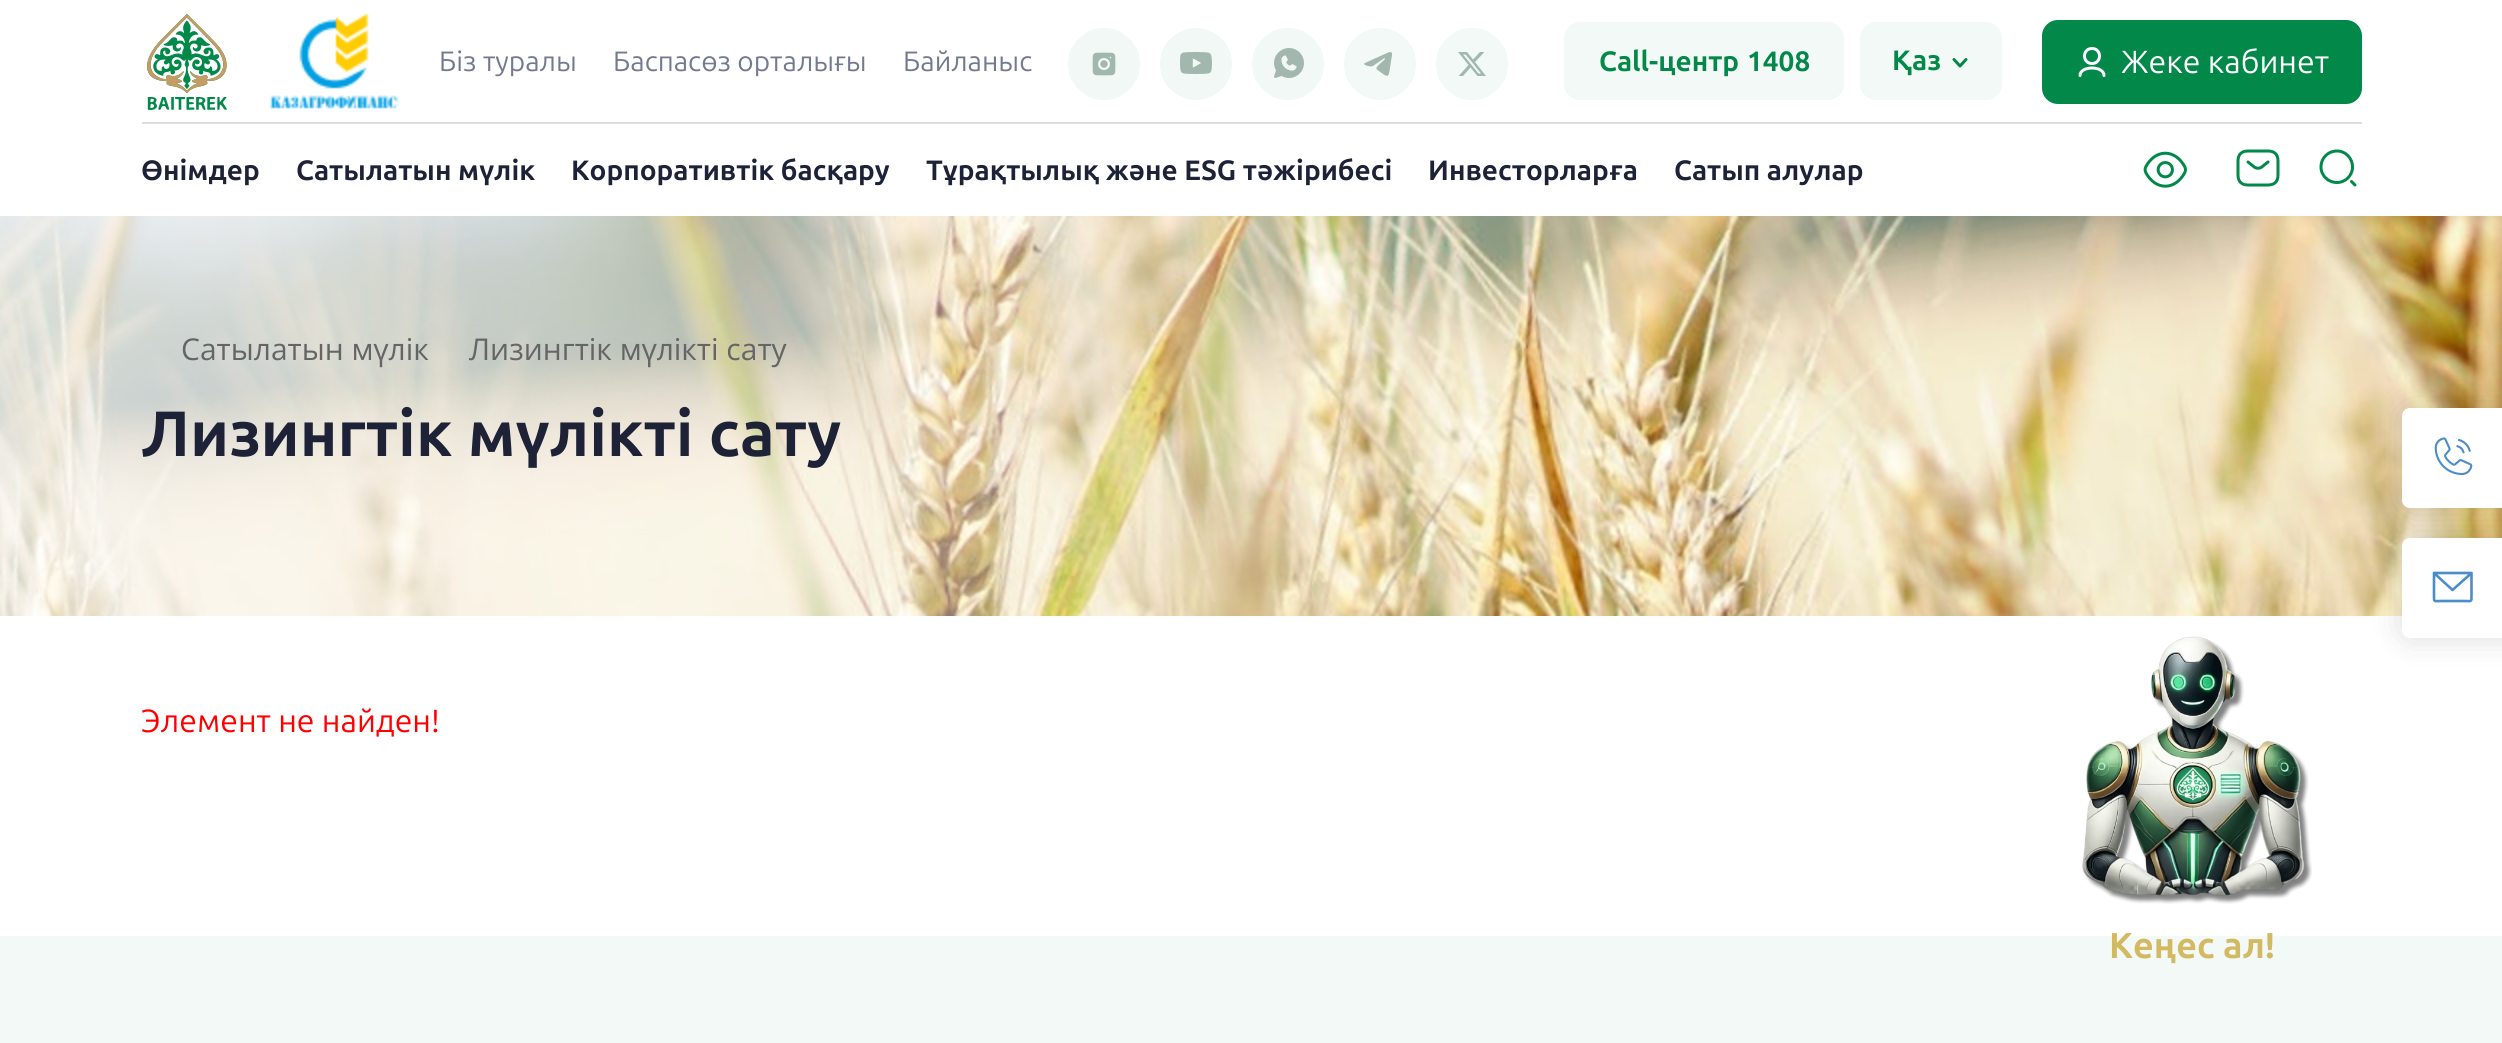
import math
import cairo

surface = cairo.ImageSurface(cairo.FORMAT_RGB24, 2502, 1043)
ctx = cairo.Context(surface)
options = cairo.FontOptions()
options.set_hint_metrics(cairo.HINT_METRICS_OFF)
options.set_hint_style(cairo.HINT_STYLE_NONE)
ctx.set_font_options(options)
ctx.set_miter_limit(4)


def round_rect(x, y, w, h, r):
    ctx.new_sub_path()
    for i, (u, v) in enumerate([(x + w - r, y + h - r), (x + r, y + h - r), (x + r, y + r), (x + w - r, y + r)]):
        ctx.arc(u, v, r, i * math.pi / 2, (i + 1) * math.pi / 2)
    ctx.close_path()


def shadow(x, y, w, h, r, blur, alpha):
    ctx.push_group_with_content(cairo.CONTENT_ALPHA)
    ctx.set_operator(cairo.OPERATOR_SOURCE)
    for i in range(15, -16, -2):
        e = blur * i / 6
        if min(w, h) + 2 * e > 0:
            ctx.set_source_rgba(0, 0, 0, alpha * math.erfc((i - 1) / 8.5) / 2)
            round_rect(x - e, y - e, w + 2 * e, h + 2 * e, max(0, min(r + e + blur * .6, min(w, h) / 2 + e)))
            ctx.fill()
    ctx.mask(ctx.pop_group())


def picture(path, x, y, w, h):
    ctx.save()
    ctx.set_source_surface(cairo.ImageSurface.create_from_png(path), x, y)
    ctx.rectangle(x, y, w, h)
    ctx.fill()
    ctx.restore()


ctx.set_source_rgb(1, 1, 1)
ctx.paint()
ctx.set_source_rgb(0.867, 0.867, 0.867)
ctx.rectangle(142, 122, 2220, 2)
ctx.fill()
picture("img1.png", 147, 14, 80, 96)
picture("img2.png", 269, 14, 130, 95)
ctx.select_font_face("Ubuntu")
ctx.set_font_size(28)
ctx.set_source_rgb(0.451, 0.475, 0.561)
ctx.move_to(439, 71)
ctx.show_text("Біз туралы")
ctx.move_to(613, 71)
ctx.show_text("Баспасөз орталығы")
ctx.move_to(903, 71)
ctx.show_text("Байланыс")
picture("img3.png", 1068, 28, 72, 72)
picture("img4.png", 1160, 28, 72, 72)
picture("img5.png", 1252, 28, 72, 72)
ctx.set_source_rgb(0.949, 0.973, 0.961)
ctx.arc(1380, 64, 36, 0, 2 * math.pi)
ctx.fill()
ctx.set_source_rgb(0.635, 0.718, 0.682)
ctx.new_path()
ctx.move_to(1366, 62.5)
ctx.line_to(1387, 53)
ctx.curve_to(1394, 50, 1392, 54.5, 1391, 61)
ctx.line_to(1389.5, 71)
ctx.curve_to(1388.5, 76.5, 1387.5, 77, 1383, 74)
ctx.curve_to(1382, 73, 1377, 70, 1376.5, 69)
ctx.curve_to(1375, 66.5, 1385.5, 60, 1385, 58.5)
ctx.curve_to(1385, 57.5, 1383, 59, 1383, 59)
ctx.line_to(1373, 66)
ctx.line_to(1371, 66.5)
ctx.curve_to(1369, 66.5, 1360.5, 64.5, 1366, 62.5)
ctx.close_path()
ctx.fill()
ctx.set_source_rgb(0.949, 0.973, 0.961)
ctx.arc(1472, 64, 36, 0, 2 * math.pi)
ctx.fill()
ctx.set_source_rgb(0.635, 0.718, 0.682)
ctx.new_path()
ctx.move_to(1458, 52)
ctx.line_to(1468.5, 65)
ctx.line_to(1460, 74.5)
ctx.curve_to(1459.5, 75, 1458, 76, 1459, 76)
ctx.line_to(1463, 76)
ctx.line_to(1470.5, 67.5)
ctx.line_to(1477.5, 76)
ctx.line_to(1486, 76)
ctx.line_to(1475, 62)
ctx.line_to(1483, 53.5)
ctx.curve_to(1483.5, 53, 1485, 52, 1483.5, 52)
ctx.line_to(1480, 52)
ctx.line_to(1473, 59.5)
ctx.line_to(1467, 52)
ctx.close_path()
ctx.move_to(1473.5, 64)
ctx.line_to(1478.5, 70.5)
ctx.curve_to(1481.5, 74, 1482, 73.5, 1478.5, 73.5)
ctx.line_to(1463, 54.5)
ctx.line_to(1465.5, 54.5)
ctx.close_path()
ctx.fill()
ctx.set_source_rgb(0.949, 0.973, 0.961)
round_rect(1564, 22, 280, 78, 16)
ctx.fill()
ctx.select_font_face("Ubuntu", cairo.FONT_SLANT_NORMAL, cairo.FONT_WEIGHT_BOLD)
ctx.set_source_rgb(0.008, 0.533, 0.286)
ctx.move_to(1599, 71)
ctx.show_text("Call-центр")
ctx.move_to(1747, 71)
ctx.show_text("1408")
ctx.set_source_rgb(0.949, 0.973, 0.961)
round_rect(1860, 22, 142, 78, 16)
ctx.fill()
ctx.set_source_rgb(0.008, 0.533, 0.286)
ctx.move_to(1892, 70)
ctx.show_text("Қаз")
ctx.new_path()
ctx.move_to(1966, 59.5)
ctx.line_to(1960, 66)
ctx.line_to(1954, 59.5)
ctx.set_line_width(3)
ctx.set_line_cap(cairo.LINE_CAP_ROUND)
ctx.set_line_join(cairo.LINE_JOIN_ROUND)
ctx.stroke()
round_rect(2042, 20, 320, 84, 16)
ctx.fill()
ctx.new_path()
ctx.move_to(2104, 75.5)
ctx.curve_to(2104, 65.5, 2080, 65.5, 2080, 75.5)
ctx.move_to(2092, 63.5)
ctx.curve_to(2082, 63.5, 2082, 48.5, 2092, 48.5)
ctx.curve_to(2102, 48.5, 2102, 63.5, 2092, 63.5)
ctx.close_path()
ctx.set_source_rgb(1, 1, 1)
ctx.stroke()
ctx.select_font_face("Ubuntu")
ctx.set_font_size(32)
ctx.move_to(2121, 73)
ctx.show_text("Жеке кабинет")
ctx.select_font_face("Ubuntu", cairo.FONT_SLANT_NORMAL, cairo.FONT_WEIGHT_BOLD)
ctx.set_font_size(28)
ctx.set_source_rgb(0.114, 0.133, 0.216)
ctx.move_to(141, 180)
ctx.show_text("Өнімдер")
ctx.move_to(296, 180)
ctx.show_text("Сатылатын мүлік")
ctx.move_to(571, 180)
ctx.show_text("Корпоративтік басқару")
ctx.move_to(926, 180)
ctx.show_text("Тұрақтылық және ESG тәжірибесі")
ctx.move_to(1428, 180)
ctx.show_text("Инвесторларға")
ctx.move_to(1674, 180)
ctx.show_text("Сатып алулар")
picture("img6.png", 2143, 151, 44, 37)
picture("img7.png", 2236, 149, 44, 38)
ctx.new_path()
ctx.move_to(2337, 182.5)
ctx.curve_to(2345.5, 182.5, 2352.5, 175.5, 2352.5, 167)
ctx.curve_to(2352.5, 158, 2345.5, 151, 2337, 151)
ctx.curve_to(2328, 151, 2321, 158, 2321, 167)
ctx.curve_to(2321, 175.5, 2328, 182.5, 2337, 182.5)
ctx.close_path()
ctx.move_to(2355, 185)
ctx.line_to(2351.5, 181.5)
ctx.set_source_rgb(0.008, 0.533, 0.286)
ctx.stroke()
picture("img8.png", 0, 216, 2502, 400)
ctx.select_font_face("Open Sans")
ctx.set_font_size(30)
ctx.set_source_rgb(0.396, 0.396, 0.396)
ctx.move_to(181, 360)
ctx.show_text("Сатылатын мүлік")
ctx.move_to(469, 360)
ctx.show_text("Лизингтік мүлікті сату")
ctx.select_font_face("Ubuntu", cairo.FONT_SLANT_NORMAL, cairo.FONT_WEIGHT_BOLD)
ctx.set_font_size(64)
ctx.set_source_rgb(0.114, 0.133, 0.216)
ctx.move_to(141, 456)
ctx.show_text("Лизингтік мүлікті сату")
ctx.select_font_face("Ubuntu")
ctx.set_font_size(32)
ctx.set_source_rgb(1, 0, 0)
ctx.move_to(141, 732)
ctx.show_text("Элемент не найден!")
ctx.set_source_rgb(0, 0, 0)
shadow(2402, 408, 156, 100, 8, 16, 0.14)
ctx.set_source_rgb(1, 1, 1)
ctx.new_path()
ctx.move_to(2410, 408)
ctx.line_to(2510, 408)
ctx.line_to(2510, 508)
ctx.line_to(2410, 508)
ctx.curve_to(2405.5, 508, 2402, 504.5, 2402, 500)
ctx.line_to(2402, 416)
ctx.curve_to(2402, 411.5, 2405.5, 408, 2410, 408)
ctx.close_path()
ctx.fill()
picture("img9.png", 2434, 437, 39, 39)
ctx.set_source_rgb(0, 0, 0)
shadow(2402, 538, 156, 100, 8, 16, 0.14)
ctx.set_source_rgb(1, 1, 1)
ctx.new_path()
ctx.move_to(2410, 538)
ctx.line_to(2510, 538)
ctx.line_to(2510, 638)
ctx.line_to(2410, 638)
ctx.curve_to(2405.5, 638, 2402, 634.5, 2402, 630)
ctx.line_to(2402, 546)
ctx.curve_to(2402, 541.5, 2405.5, 538, 2410, 538)
ctx.close_path()
ctx.fill()
ctx.new_path()
ctx.move_to(2434, 573)
ctx.line_to(2471.5, 573)
ctx.line_to(2471.5, 595)
ctx.curve_to(2471.5, 602.5, 2472, 601, 2464, 601)
ctx.line_to(2441.5, 601)
ctx.curve_to(2433.5, 601, 2434, 602.5, 2434, 595)
ctx.close_path()
ctx.move_to(2471.5, 573)
ctx.line_to(2452.5, 590)
ctx.line_to(2434, 573)
ctx.set_source_rgb(0.294, 0.549, 0.792)
ctx.set_line_width(2.6)
ctx.stroke()
picture("img10.png", 2082, 636, 230, 268)
ctx.set_source_rgb(0.949, 0.973, 0.961)
ctx.rectangle(0, 936, 2502, 107)
ctx.fill()
ctx.select_font_face("Ubuntu", cairo.FONT_SLANT_NORMAL, cairo.FONT_WEIGHT_BOLD)
ctx.set_font_size(36)
ctx.set_source_rgb(0.827, 0.725, 0.38)
ctx.move_to(2109, 958)
ctx.show_text("Кеңес ал!")
surface.write_to_png("page.png")
